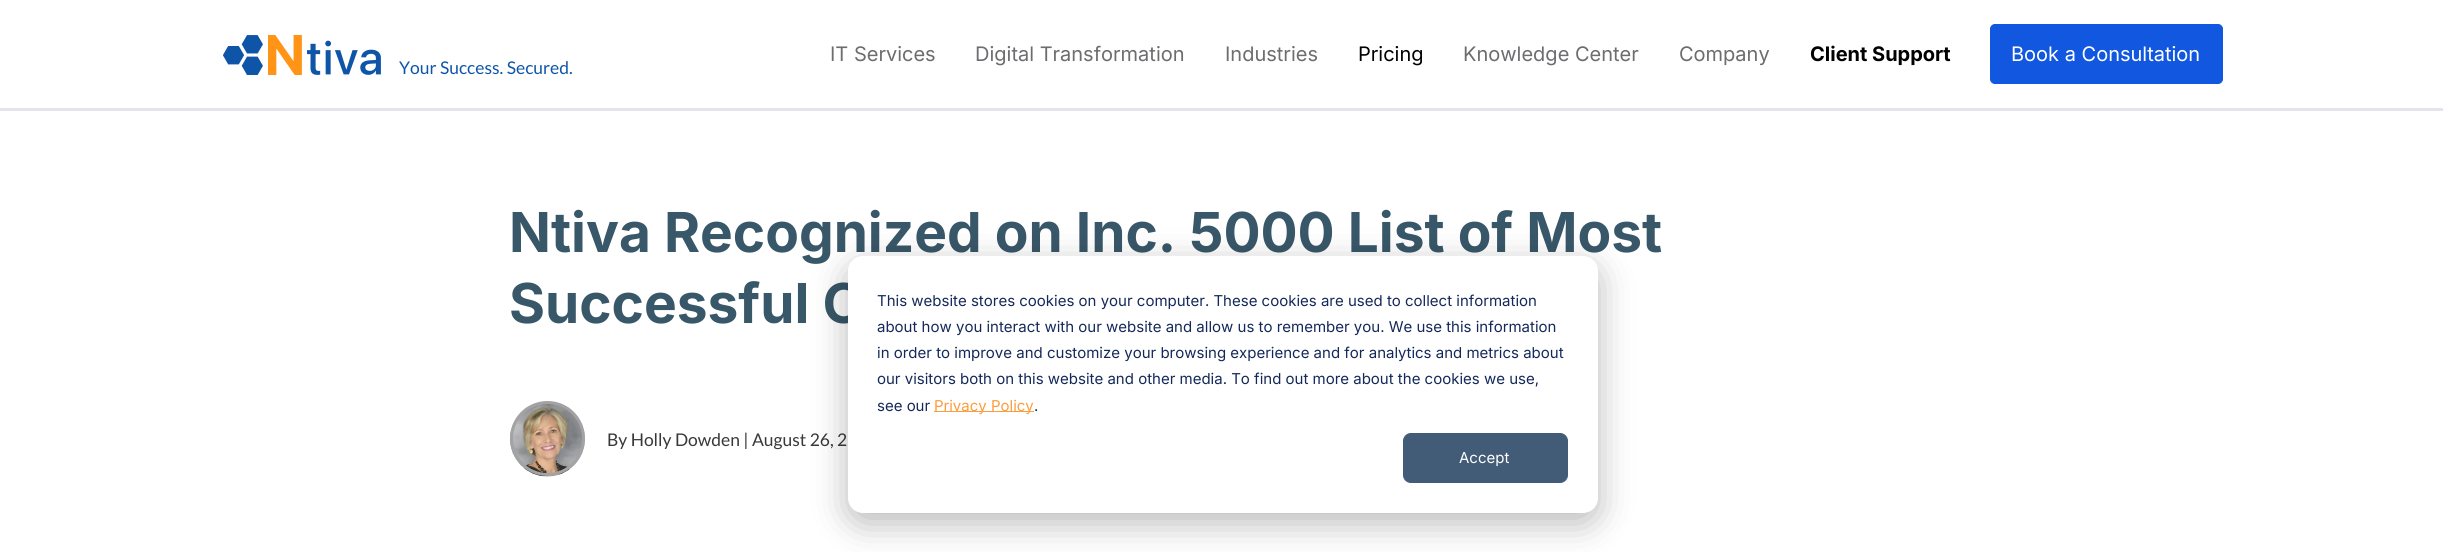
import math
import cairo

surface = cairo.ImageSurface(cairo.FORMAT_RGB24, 2443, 552)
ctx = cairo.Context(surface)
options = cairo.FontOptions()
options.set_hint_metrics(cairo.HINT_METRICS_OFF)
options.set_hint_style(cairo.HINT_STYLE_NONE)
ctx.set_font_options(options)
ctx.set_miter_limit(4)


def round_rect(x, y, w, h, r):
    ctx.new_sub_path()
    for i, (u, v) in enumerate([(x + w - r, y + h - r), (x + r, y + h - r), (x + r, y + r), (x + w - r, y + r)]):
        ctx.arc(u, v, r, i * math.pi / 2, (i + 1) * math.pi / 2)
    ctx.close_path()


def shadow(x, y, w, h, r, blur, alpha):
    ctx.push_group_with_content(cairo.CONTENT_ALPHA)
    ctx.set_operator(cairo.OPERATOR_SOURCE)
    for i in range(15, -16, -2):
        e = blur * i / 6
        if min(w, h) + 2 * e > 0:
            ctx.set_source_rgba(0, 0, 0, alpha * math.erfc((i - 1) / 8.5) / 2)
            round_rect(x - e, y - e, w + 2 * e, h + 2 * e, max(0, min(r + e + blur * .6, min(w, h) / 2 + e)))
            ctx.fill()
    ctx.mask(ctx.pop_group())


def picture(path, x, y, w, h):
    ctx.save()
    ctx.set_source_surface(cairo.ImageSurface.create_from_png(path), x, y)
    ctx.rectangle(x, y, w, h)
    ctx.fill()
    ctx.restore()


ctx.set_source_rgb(1, 1, 1)
ctx.paint()
ctx.set_source_rgb(0.89, 0.894, 0.922)
ctx.rectangle(0, 108, 2443, 3)
ctx.fill()
ctx.select_font_face("Inter")
ctx.set_font_size(20)
ctx.set_source_rgb(0.427, 0.427, 0.439)
ctx.move_to(830, 61)
ctx.show_text("IT Services")
ctx.move_to(975, 61)
ctx.show_text("Digital Transformation")
ctx.move_to(1225, 61)
ctx.show_text("Industries")
ctx.set_source_rgb(0, 0, 0)
ctx.move_to(1358, 61)
ctx.show_text("Pricing")
ctx.set_source_rgb(0.427, 0.427, 0.439)
ctx.move_to(1463, 61)
ctx.show_text("Knowledge Center")
ctx.move_to(1679, 61)
ctx.show_text("Company")
ctx.select_font_face("Inter", cairo.FONT_SLANT_NORMAL, cairo.FONT_WEIGHT_BOLD)
ctx.set_source_rgb(0, 0, 0)
ctx.move_to(1810, 61)
ctx.show_text("Client Support")
ctx.set_source_rgb(0.067, 0.341, 0.875)
round_rect(1990.5, 24.5, 232, 59, 4.5)
ctx.fill_preserve()
ctx.set_line_width(1)
ctx.stroke()
ctx.select_font_face("Inter")
ctx.set_source_rgb(1, 1, 1)
ctx.move_to(2011, 61)
ctx.show_text("Book a Consultation")
picture("img1.png", 223, 35, 158, 40)
ctx.select_font_face("Lato")
ctx.set_font_size(17.5)
ctx.set_source_rgb(0.055, 0.333, 0.659)
ctx.move_to(399, 74)
ctx.show_text("Your Success. Secured.")
ctx.select_font_face("Inter", cairo.FONT_SLANT_NORMAL, cairo.FONT_WEIGHT_BOLD)
ctx.set_font_size(55)
ctx.set_source_rgb(0.22, 0.341, 0.412)
ctx.move_to(509, 252)
ctx.show_text("Ntiva Recognized on Inc. 5000 List of Most")
ctx.move_to(509, 323)
ctx.show_text("Successful C")
picture("img2.png", 510, 401, 75, 76)
ctx.arc(547.5, 438.5, 36, 0, 2 * math.pi)
ctx.set_source_rgb(0.639, 0.639, 0.639)
ctx.set_line_width(3)
ctx.stroke()
ctx.select_font_face("Lato")
ctx.set_font_size(17.5)
ctx.set_source_rgb(0.22, 0.22, 0.22)
ctx.move_to(607, 446)
ctx.show_text("By Holly Dowden | August 26, 2")
ctx.set_source_rgb(0, 0, 0)
shadow(848, 266, 750, 257, 15, 17.5, 0.28)
ctx.set_source_rgb(1, 1, 1)
round_rect(848, 256, 750, 257, 15)
ctx.fill()
ctx.select_font_face("Inter")
ctx.set_font_size(15)
ctx.set_source_rgb(0.082, 0.161, 0.353)
ctx.move_to(877, 306)
ctx.show_text("This website stores cookies on your computer. These cookies are used to collect information")
ctx.move_to(877, 332)
ctx.show_text("about how you interact with our website and allow us to remember you. We use this information")
ctx.move_to(877, 358)
ctx.show_text("in order to improve and customize your browsing experience and for analytics and metrics about")
ctx.move_to(877, 384)
ctx.show_text("our visitors both on this website and other media. To find out more about the cookies we use,")
ctx.move_to(877, 411)
ctx.show_text("see our")
ctx.set_source_rgb(0.984, 0.616, 0.239)
ctx.rectangle(934, 411, 100, 1)
ctx.fill()
ctx.move_to(934, 411)
ctx.show_text("Privacy Policy")
ctx.set_source_rgb(0.082, 0.161, 0.353)
ctx.move_to(1034, 411)
ctx.show_text(".")
ctx.set_source_rgb(0.259, 0.357, 0.463)
round_rect(1403.5, 433.5, 164, 49, 7.5)
ctx.fill_preserve()
ctx.set_line_width(1)
ctx.stroke()
ctx.set_source_rgb(1, 1, 1)
ctx.move_to(1459, 463)
ctx.show_text("Accept")
surface.write_to_png("page.png")
